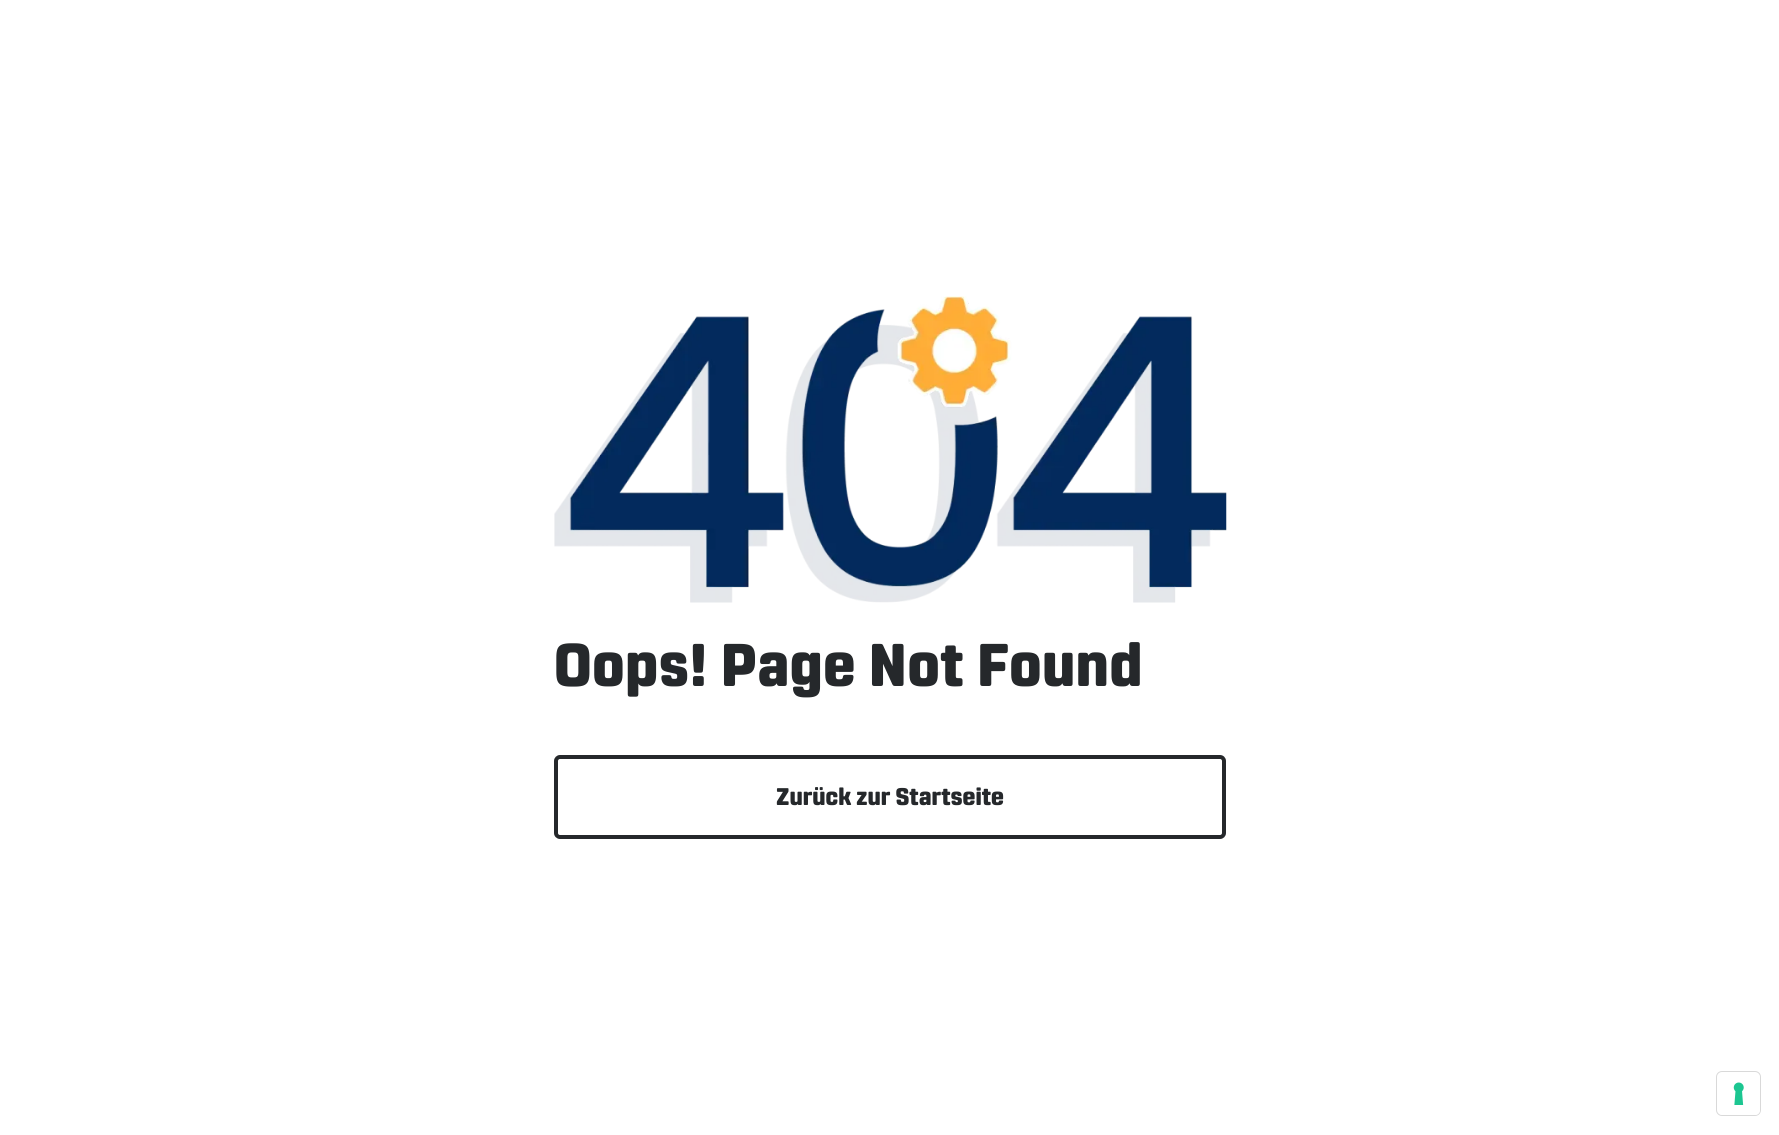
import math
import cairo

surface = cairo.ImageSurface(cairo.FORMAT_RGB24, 1779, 1135)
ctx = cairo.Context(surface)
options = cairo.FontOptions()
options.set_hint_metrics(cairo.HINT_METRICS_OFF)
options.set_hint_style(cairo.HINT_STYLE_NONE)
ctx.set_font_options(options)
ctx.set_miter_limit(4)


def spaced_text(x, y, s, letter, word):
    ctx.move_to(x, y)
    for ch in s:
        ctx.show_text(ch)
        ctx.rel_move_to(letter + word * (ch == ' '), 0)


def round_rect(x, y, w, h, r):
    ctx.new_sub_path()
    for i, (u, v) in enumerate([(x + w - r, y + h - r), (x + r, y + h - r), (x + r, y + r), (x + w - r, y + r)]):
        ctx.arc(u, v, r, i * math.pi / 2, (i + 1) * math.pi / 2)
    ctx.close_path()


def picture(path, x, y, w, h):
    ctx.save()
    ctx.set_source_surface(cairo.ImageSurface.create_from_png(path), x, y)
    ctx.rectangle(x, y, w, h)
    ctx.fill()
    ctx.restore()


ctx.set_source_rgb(1, 1, 1)
ctx.paint()
picture("img1.png", 554, 296, 673, 307)
ctx.select_font_face("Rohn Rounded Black")
ctx.set_font_size(60)
ctx.set_source_rgb(0.145, 0.157, 0.169)
spaced_text(554, 686, "Oops! Page Not Found", 0.6, 0)
round_rect(556, 757, 668, 80, 4)
ctx.set_line_width(4)
ctx.stroke()
ctx.set_font_size(24)
ctx.move_to(776, 805)
ctx.show_text("Zurück zur Startseite")
round_rect(1716.5, 1071.5, 44, 44, 5.5)
ctx.set_source_rgb(0.851, 0.851, 0.851)
ctx.set_line_width(1)
ctx.stroke()
ctx.set_source_rgb(1, 1, 1)
round_rect(1718, 1073, 42, 42, 5)
ctx.fill()
picture("img2.png", 1733, 1082, 11, 23)
surface.write_to_png("page.png")
